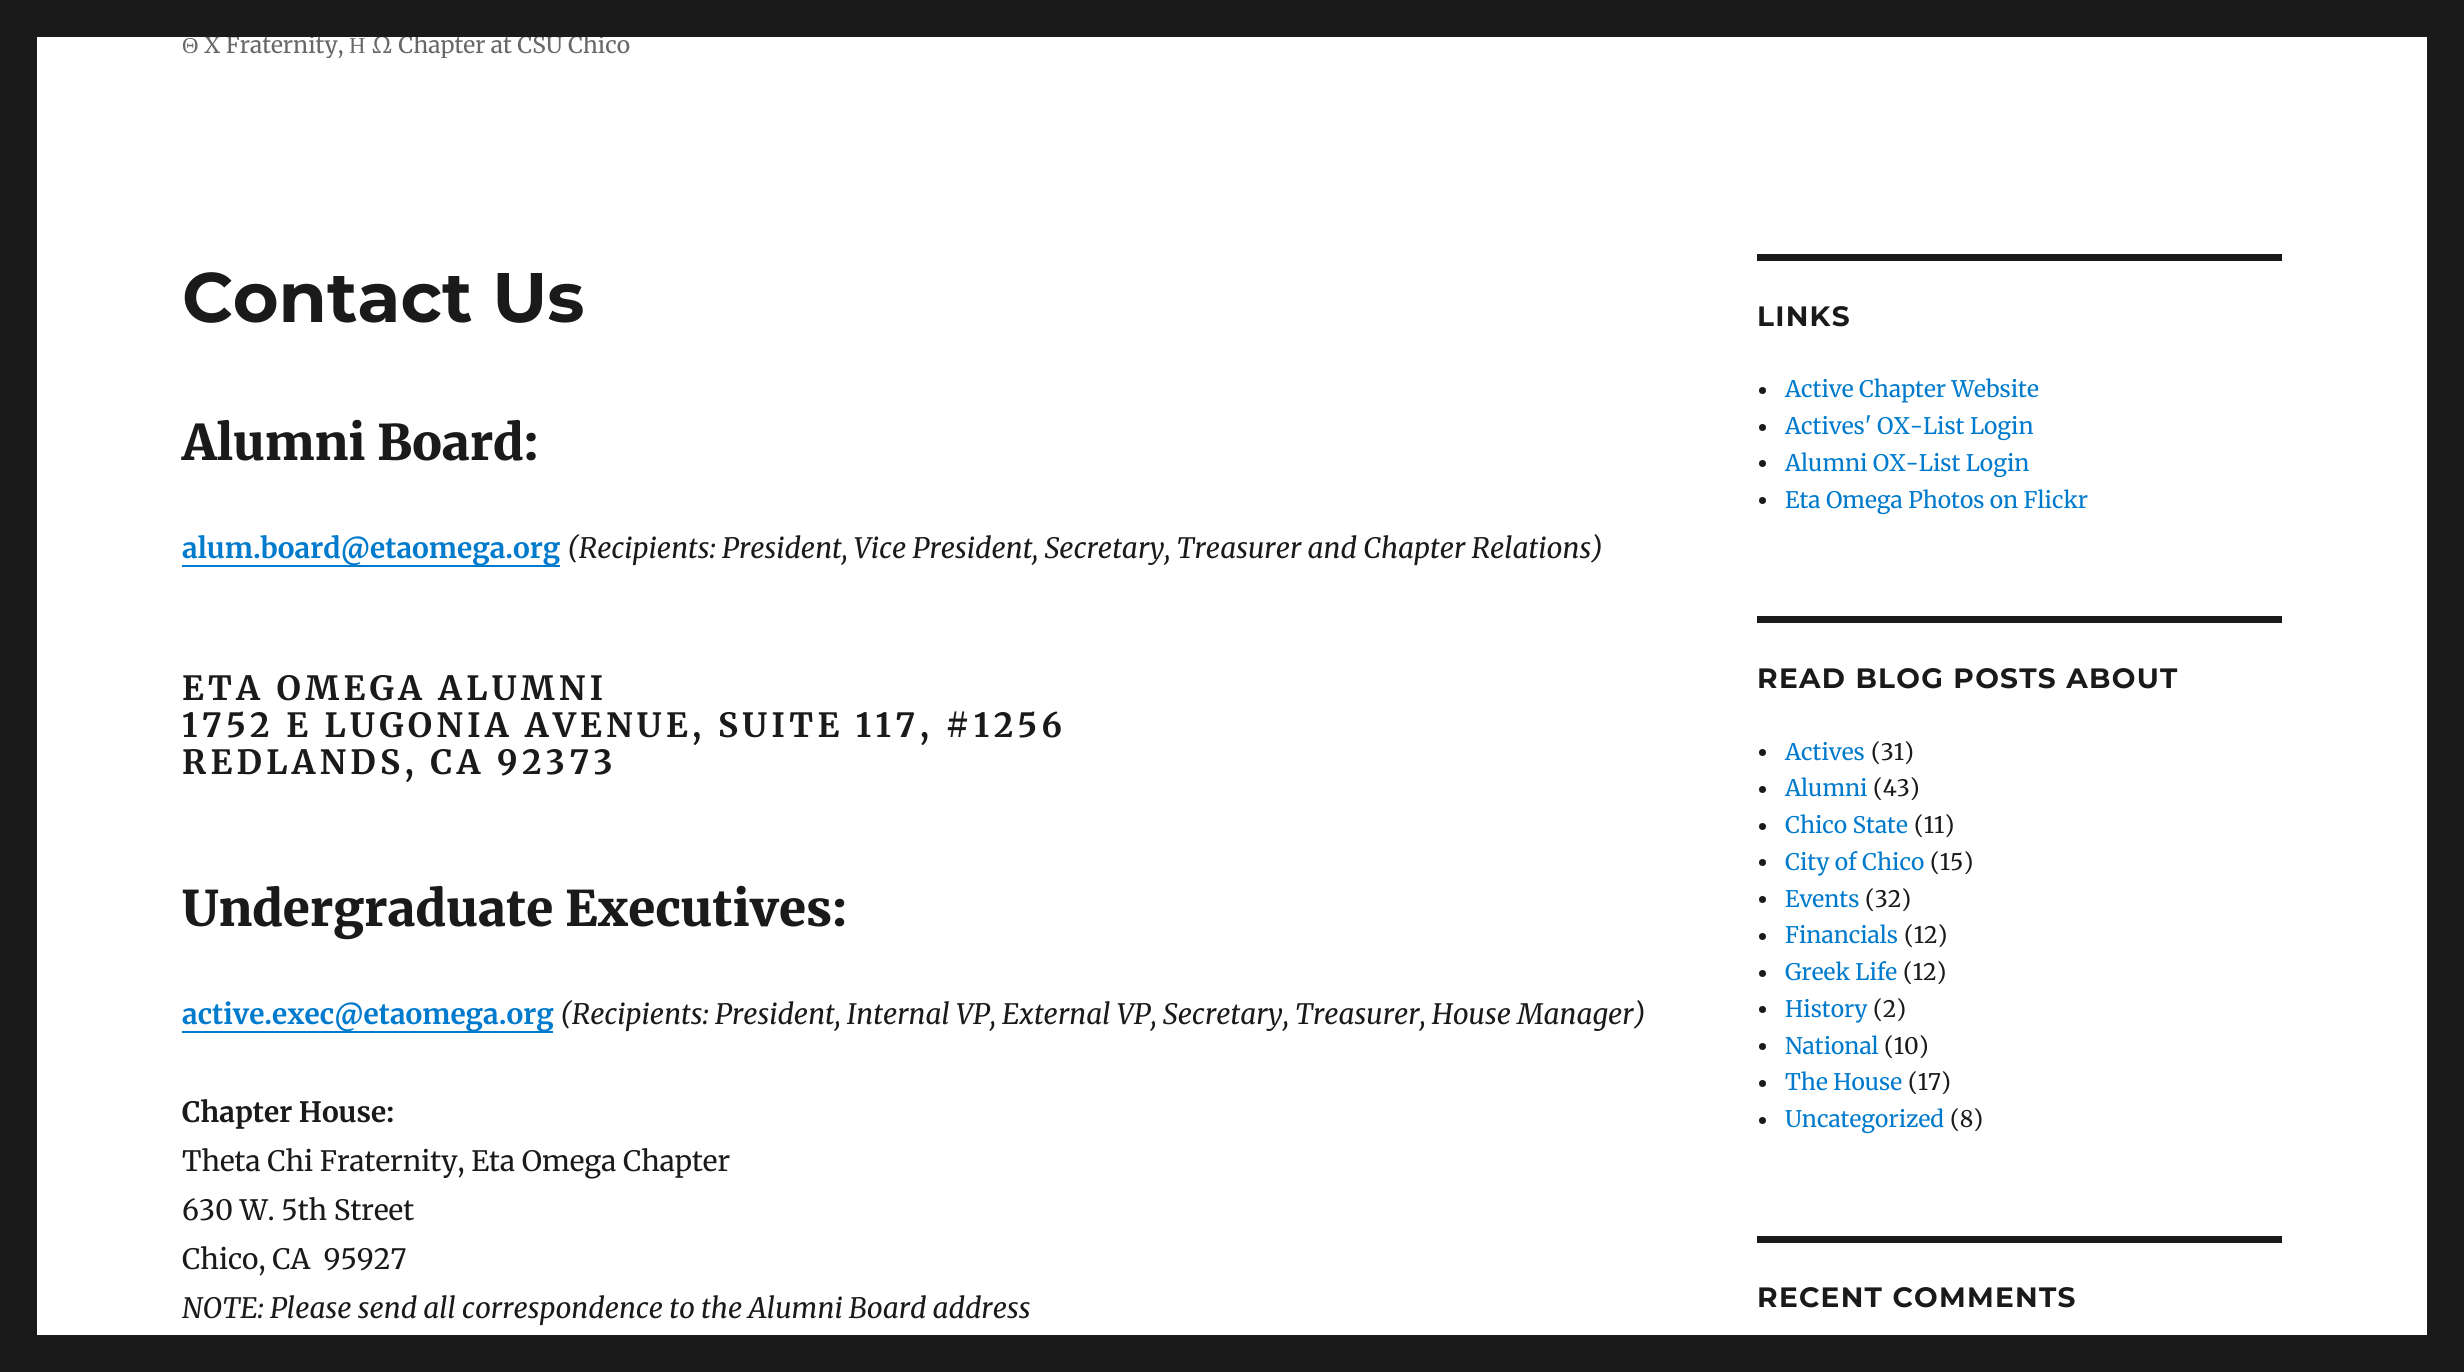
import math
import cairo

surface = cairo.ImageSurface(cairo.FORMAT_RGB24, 2464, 1372)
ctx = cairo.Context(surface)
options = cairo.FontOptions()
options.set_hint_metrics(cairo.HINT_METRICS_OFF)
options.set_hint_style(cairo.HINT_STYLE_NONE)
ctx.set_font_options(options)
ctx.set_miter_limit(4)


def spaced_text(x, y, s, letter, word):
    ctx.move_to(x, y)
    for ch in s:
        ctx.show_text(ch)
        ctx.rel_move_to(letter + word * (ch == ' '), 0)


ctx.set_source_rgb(0.102, 0.102, 0.102)
ctx.paint()
ctx.set_source_rgb(1, 1, 1)
ctx.rectangle(37, 37, 2390, 1298)
ctx.fill()
ctx.select_font_face("Liberation Serif")
ctx.set_font_size(22.75)
ctx.set_source_rgb(0.408, 0.408, 0.408)
ctx.move_to(182, 53)
ctx.show_text("Θ")
ctx.save()
ctx.rectangle(182, 0, 795, 58)
ctx.clip()
ctx.select_font_face("Merriweather")
ctx.move_to(204, 53)
ctx.show_text("Χ Fraternity,")
ctx.restore()
ctx.move_to(349, 53)
ctx.show_text("Η")
ctx.save()
ctx.rectangle(182, 0, 795, 58)
ctx.clip()
ctx.select_font_face("Merriweather")
ctx.move_to(371, 53)
ctx.show_text("Ω Chapter at CSU Chico")
ctx.restore()
ctx.select_font_face("Montserrat", cairo.FONT_SLANT_NORMAL, cairo.FONT_WEIGHT_BOLD)
ctx.set_font_size(70)
ctx.set_source_rgb(0.102, 0.102, 0.102)
ctx.move_to(182, 322)
ctx.show_text("Contact Us")
ctx.select_font_face("Merriweather Black")
ctx.set_font_size(49)
ctx.move_to(182, 460)
ctx.show_text("Alumni Board:")
ctx.set_source_rgb(0, 0.478, 0.8)
ctx.rectangle(182, 565, 378, 2)
ctx.fill()
ctx.select_font_face("Merriweather", cairo.FONT_SLANT_NORMAL, cairo.FONT_WEIGHT_BOLD)
ctx.set_font_size(28)
ctx.move_to(182, 558)
ctx.show_text("alum.board@etaomega.org")
ctx.select_font_face("Merriweather", cairo.FONT_SLANT_ITALIC)
ctx.set_source_rgb(0.102, 0.102, 0.102)
ctx.move_to(567, 558)
ctx.show_text("(Recipients: President, Vice President, Secretary, Treasurer and Chapter Relations)")
ctx.select_font_face("Merriweather", cairo.FONT_SLANT_NORMAL, cairo.FONT_WEIGHT_BOLD)
ctx.set_font_size(33.25)
spaced_text(182, 700, "ETA OMEGA ALUMNI", 4.4, 0)
spaced_text(182, 737, "1752 E LUGONIA AVENUE, SUITE 117, #1256", 4.4, 0)
spaced_text(182, 774, "REDLANDS, CA 92373", 4.4, 0)
ctx.select_font_face("Merriweather Black")
ctx.set_font_size(49)
ctx.move_to(182, 926)
ctx.show_text("Undergraduate Executives:")
ctx.set_source_rgb(0, 0.478, 0.8)
ctx.rectangle(182, 1031, 371, 2)
ctx.fill()
ctx.select_font_face("Merriweather", cairo.FONT_SLANT_NORMAL, cairo.FONT_WEIGHT_BOLD)
ctx.set_font_size(28)
ctx.move_to(182, 1024)
ctx.show_text("active.exec@etaomega.org")
ctx.select_font_face("Merriweather", cairo.FONT_SLANT_ITALIC)
ctx.set_source_rgb(0.102, 0.102, 0.102)
ctx.move_to(560, 1024)
ctx.show_text("(Recipients: President, Internal VP, External VP, Secretary, Treasurer, House Manager)")
ctx.select_font_face("Merriweather", cairo.FONT_SLANT_NORMAL, cairo.FONT_WEIGHT_BOLD)
ctx.move_to(182, 1122)
ctx.show_text("Chapter House:")
ctx.select_font_face("Merriweather")
ctx.move_to(182, 1171)
ctx.show_text("Theta Chi Fraternity, Eta Omega Chapter")
ctx.move_to(182, 1220)
ctx.show_text("630 W. 5th Street")
ctx.move_to(182, 1269)
ctx.show_text("Chico, CA  95927")
ctx.select_font_face("Merriweather", cairo.FONT_SLANT_ITALIC)
ctx.move_to(182, 1318)
ctx.show_text("NOTE: Please send all correspondence to the Alumni Board address")
ctx.rectangle(1757, 254, 525, 7)
ctx.fill()
ctx.select_font_face("Montserrat", cairo.FONT_SLANT_NORMAL, cairo.FONT_WEIGHT_BOLD)
spaced_text(1757, 326, "LINKS", 1.3, 0)
ctx.new_path()
ctx.arc(1762.5, 390.5, 3.5, 0, 2 * math.pi)
ctx.fill()
ctx.select_font_face("Merriweather")
ctx.set_font_size(22.75)
ctx.set_source_rgb(0, 0.478, 0.8)
ctx.move_to(1785, 397)
ctx.show_text("Active Chapter Website")
ctx.set_source_rgb(0.102, 0.102, 0.102)
ctx.new_path()
ctx.arc(1762.5, 427.5, 3.5, 0, 2 * math.pi)
ctx.fill()
ctx.set_source_rgb(0, 0.478, 0.8)
ctx.move_to(1785, 434)
ctx.show_text("Actives' OX-List Login")
ctx.set_source_rgb(0.102, 0.102, 0.102)
ctx.new_path()
ctx.arc(1762.5, 463.5, 3.5, 0, 2 * math.pi)
ctx.fill()
ctx.set_source_rgb(0, 0.478, 0.8)
ctx.move_to(1785, 471)
ctx.show_text("Alumni OX-List Login")
ctx.set_source_rgb(0.102, 0.102, 0.102)
ctx.new_path()
ctx.arc(1762.5, 500.5, 3.5, 0, 2 * math.pi)
ctx.fill()
ctx.set_source_rgb(0, 0.478, 0.8)
ctx.move_to(1785, 508)
ctx.show_text("Eta Omega Photos on Flickr")
ctx.set_source_rgb(0.102, 0.102, 0.102)
ctx.rectangle(1757, 616, 525, 7)
ctx.fill()
ctx.select_font_face("Montserrat", cairo.FONT_SLANT_NORMAL, cairo.FONT_WEIGHT_BOLD)
ctx.set_font_size(28)
spaced_text(1757, 688, "READ BLOG POSTS ABOUT", 1.3, 0)
ctx.new_path()
ctx.arc(1762.5, 752.5, 3.5, 0, 2 * math.pi)
ctx.fill()
ctx.select_font_face("Merriweather")
ctx.set_font_size(22.75)
ctx.set_source_rgb(0, 0.478, 0.8)
ctx.move_to(1785, 760)
ctx.show_text("Actives")
ctx.set_source_rgb(0.102, 0.102, 0.102)
ctx.move_to(1871, 760)
ctx.show_text("(31)")
ctx.new_path()
ctx.arc(1762.5, 789.5, 3.5, 0, 2 * math.pi)
ctx.fill()
ctx.set_source_rgb(0, 0.478, 0.8)
ctx.move_to(1785, 796)
ctx.show_text("Alumni")
ctx.set_source_rgb(0.102, 0.102, 0.102)
ctx.move_to(1873, 796)
ctx.show_text("(43)")
ctx.new_path()
ctx.arc(1762.5, 826.5, 3.5, 0, 2 * math.pi)
ctx.fill()
ctx.set_source_rgb(0, 0.478, 0.8)
ctx.move_to(1785, 833)
ctx.show_text("Chico State")
ctx.set_source_rgb(0.102, 0.102, 0.102)
ctx.move_to(1914, 833)
ctx.show_text("(11)")
ctx.new_path()
ctx.arc(1762.5, 862.5, 3.5, 0, 2 * math.pi)
ctx.fill()
ctx.set_source_rgb(0, 0.478, 0.8)
ctx.move_to(1785, 870)
ctx.show_text("City of Chico")
ctx.set_source_rgb(0.102, 0.102, 0.102)
ctx.move_to(1930, 870)
ctx.show_text("(15)")
ctx.new_path()
ctx.arc(1762.5, 899.5, 3.5, 0, 2 * math.pi)
ctx.fill()
ctx.set_source_rgb(0, 0.478, 0.8)
ctx.move_to(1785, 907)
ctx.show_text("Events")
ctx.set_source_rgb(0.102, 0.102, 0.102)
ctx.move_to(1865, 907)
ctx.show_text("(32)")
ctx.new_path()
ctx.arc(1762.5, 936.5, 3.5, 0, 2 * math.pi)
ctx.fill()
ctx.set_source_rgb(0, 0.478, 0.8)
ctx.move_to(1785, 943)
ctx.show_text("Financials")
ctx.set_source_rgb(0.102, 0.102, 0.102)
ctx.move_to(1904, 943)
ctx.show_text("(12)")
ctx.new_path()
ctx.arc(1762.5, 973.5, 3.5, 0, 2 * math.pi)
ctx.fill()
ctx.set_source_rgb(0, 0.478, 0.8)
ctx.move_to(1785, 980)
ctx.show_text("Greek Life")
ctx.set_source_rgb(0.102, 0.102, 0.102)
ctx.move_to(1903, 980)
ctx.show_text("(12)")
ctx.new_path()
ctx.arc(1762.5, 1009.5, 3.5, 0, 2 * math.pi)
ctx.fill()
ctx.set_source_rgb(0, 0.478, 0.8)
ctx.move_to(1785, 1017)
ctx.show_text("History")
ctx.set_source_rgb(0.102, 0.102, 0.102)
ctx.move_to(1873, 1017)
ctx.show_text("(2)")
ctx.new_path()
ctx.arc(1762.5, 1046.5, 3.5, 0, 2 * math.pi)
ctx.fill()
ctx.set_source_rgb(0, 0.478, 0.8)
ctx.move_to(1785, 1054)
ctx.show_text("National")
ctx.set_source_rgb(0.102, 0.102, 0.102)
ctx.move_to(1884, 1054)
ctx.show_text("(10)")
ctx.new_path()
ctx.arc(1762.5, 1083.5, 3.5, 0, 2 * math.pi)
ctx.fill()
ctx.set_source_rgb(0, 0.478, 0.8)
ctx.move_to(1785, 1090)
ctx.show_text("The House")
ctx.set_source_rgb(0.102, 0.102, 0.102)
ctx.move_to(1908, 1090)
ctx.show_text("(17)")
ctx.new_path()
ctx.arc(1762.5, 1120.5, 3.5, 0, 2 * math.pi)
ctx.fill()
ctx.set_source_rgb(0, 0.478, 0.8)
ctx.move_to(1785, 1127)
ctx.show_text("Uncategorized")
ctx.set_source_rgb(0.102, 0.102, 0.102)
ctx.move_to(1950, 1127)
ctx.show_text("(8)")
ctx.rectangle(1757, 1236, 525, 7)
ctx.fill()
ctx.select_font_face("Montserrat", cairo.FONT_SLANT_NORMAL, cairo.FONT_WEIGHT_BOLD)
ctx.set_font_size(28)
spaced_text(1757, 1307, "RECENT COMMENTS", 1.3, 0)
ctx.rectangle(204, 34, 399, 3)
ctx.fill()
surface.write_to_png("page.png")
